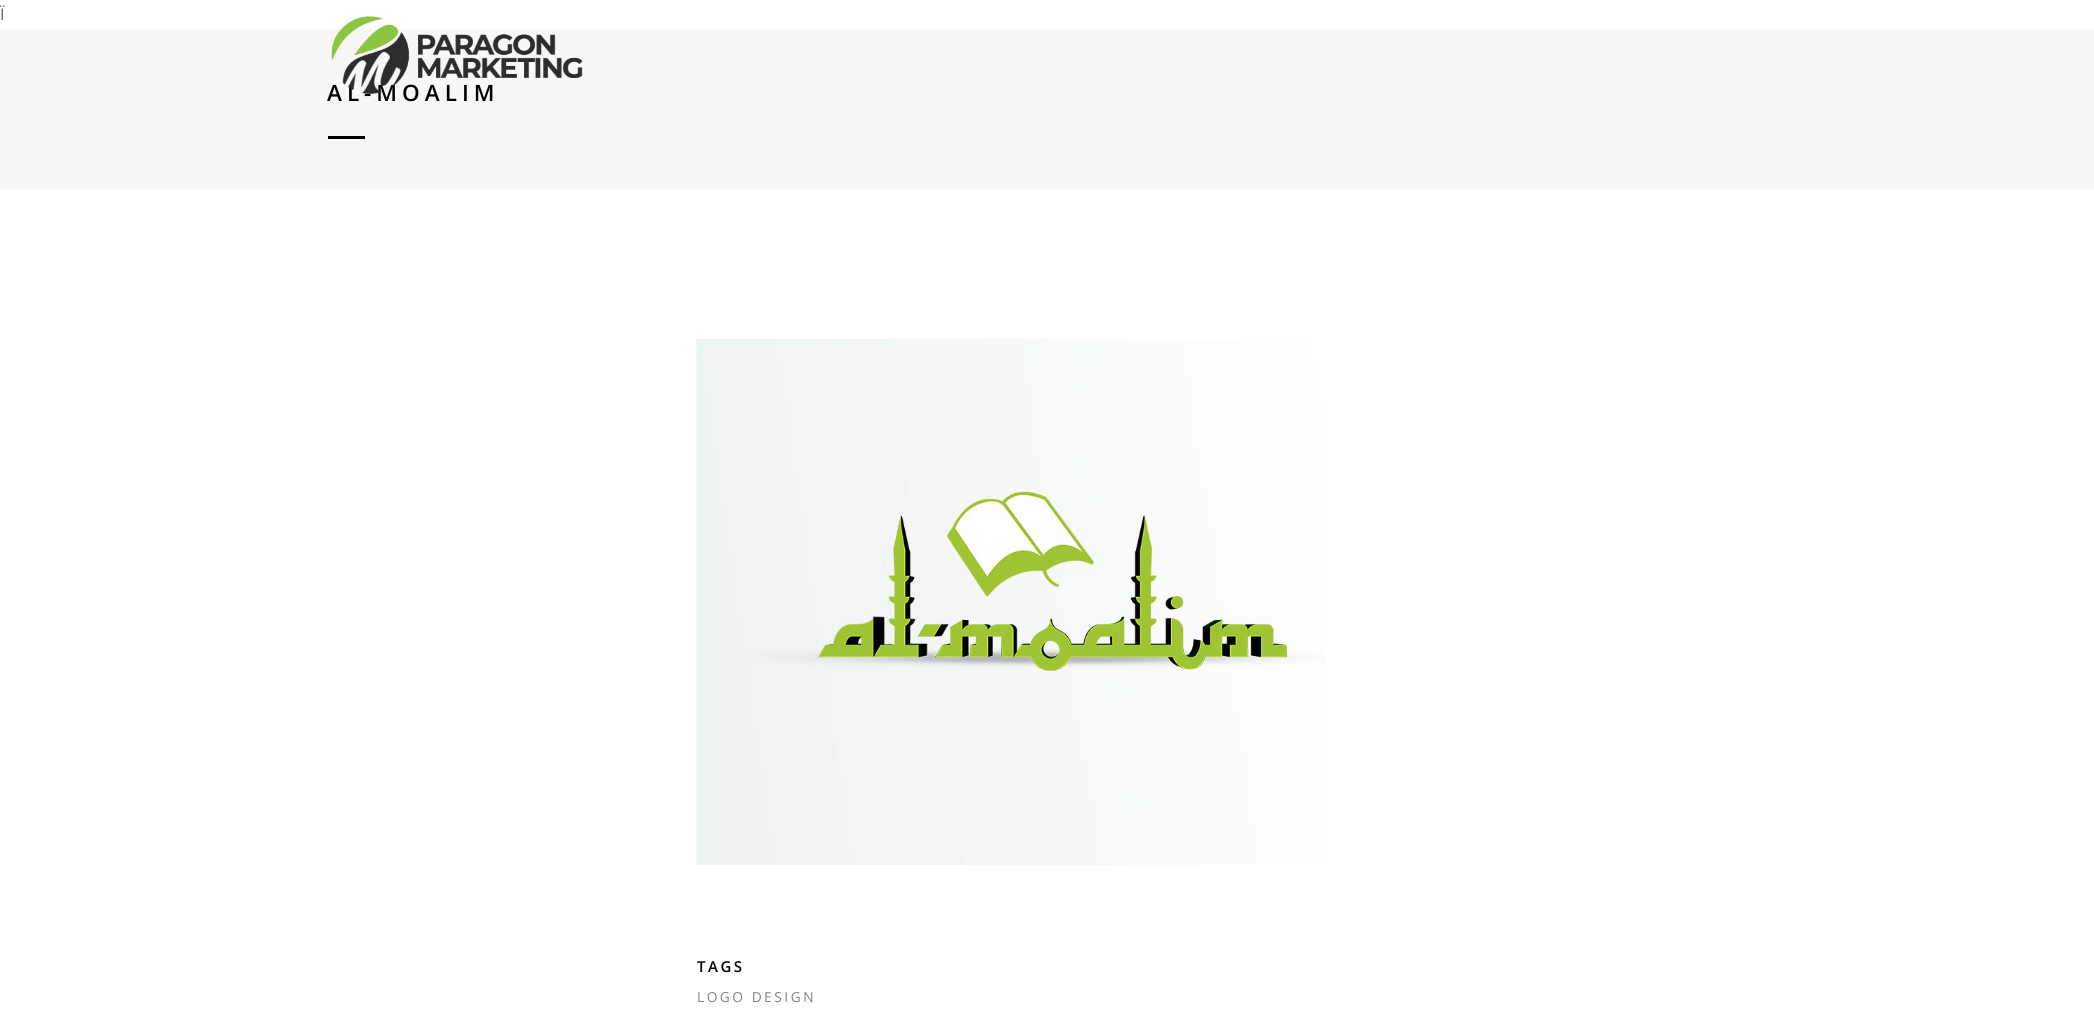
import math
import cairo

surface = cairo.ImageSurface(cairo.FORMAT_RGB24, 2094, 1036)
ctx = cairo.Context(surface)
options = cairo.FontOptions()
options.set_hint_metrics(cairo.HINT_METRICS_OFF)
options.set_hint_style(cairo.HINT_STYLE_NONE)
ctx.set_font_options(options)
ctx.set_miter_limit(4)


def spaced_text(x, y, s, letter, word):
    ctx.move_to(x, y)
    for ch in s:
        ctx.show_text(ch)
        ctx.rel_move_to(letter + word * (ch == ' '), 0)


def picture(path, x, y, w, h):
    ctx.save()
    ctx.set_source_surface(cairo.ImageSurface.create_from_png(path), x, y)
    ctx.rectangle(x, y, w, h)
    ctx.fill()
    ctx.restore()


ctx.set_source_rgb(1, 1, 1)
ctx.paint()
ctx.select_font_face("Open Sans")
ctx.set_font_size(16)
ctx.set_source_rgb(0.384, 0.384, 0.384)
ctx.move_to(0, 20)
ctx.show_text("Ï")
ctx.set_source_rgb(0.965, 0.965, 0.965)
ctx.rectangle(0, 29, 2094, 160)
ctx.fill()
ctx.select_font_face("Open Sans SemiBold")
ctx.set_font_size(22.5)
ctx.set_source_rgb(0, 0, 0)
spaced_text(327, 101, "AL-MOALIM", 5, 0)
picture("img1.png", 331, 16, 252, 78)
ctx.rectangle(328, 136, 37, 3)
ctx.fill()
picture("img2.png", 696, 339, 630, 526)
ctx.set_font_size(15)
spaced_text(697, 972, "TAGS", 2.5, 0)
ctx.select_font_face("Open Sans")
ctx.set_font_size(13.75)
ctx.set_source_rgb(0.51, 0.51, 0.51)
spaced_text(697, 1002, "LOGO DESIGN", 2.5, 0)
surface.write_to_png("page.png")
